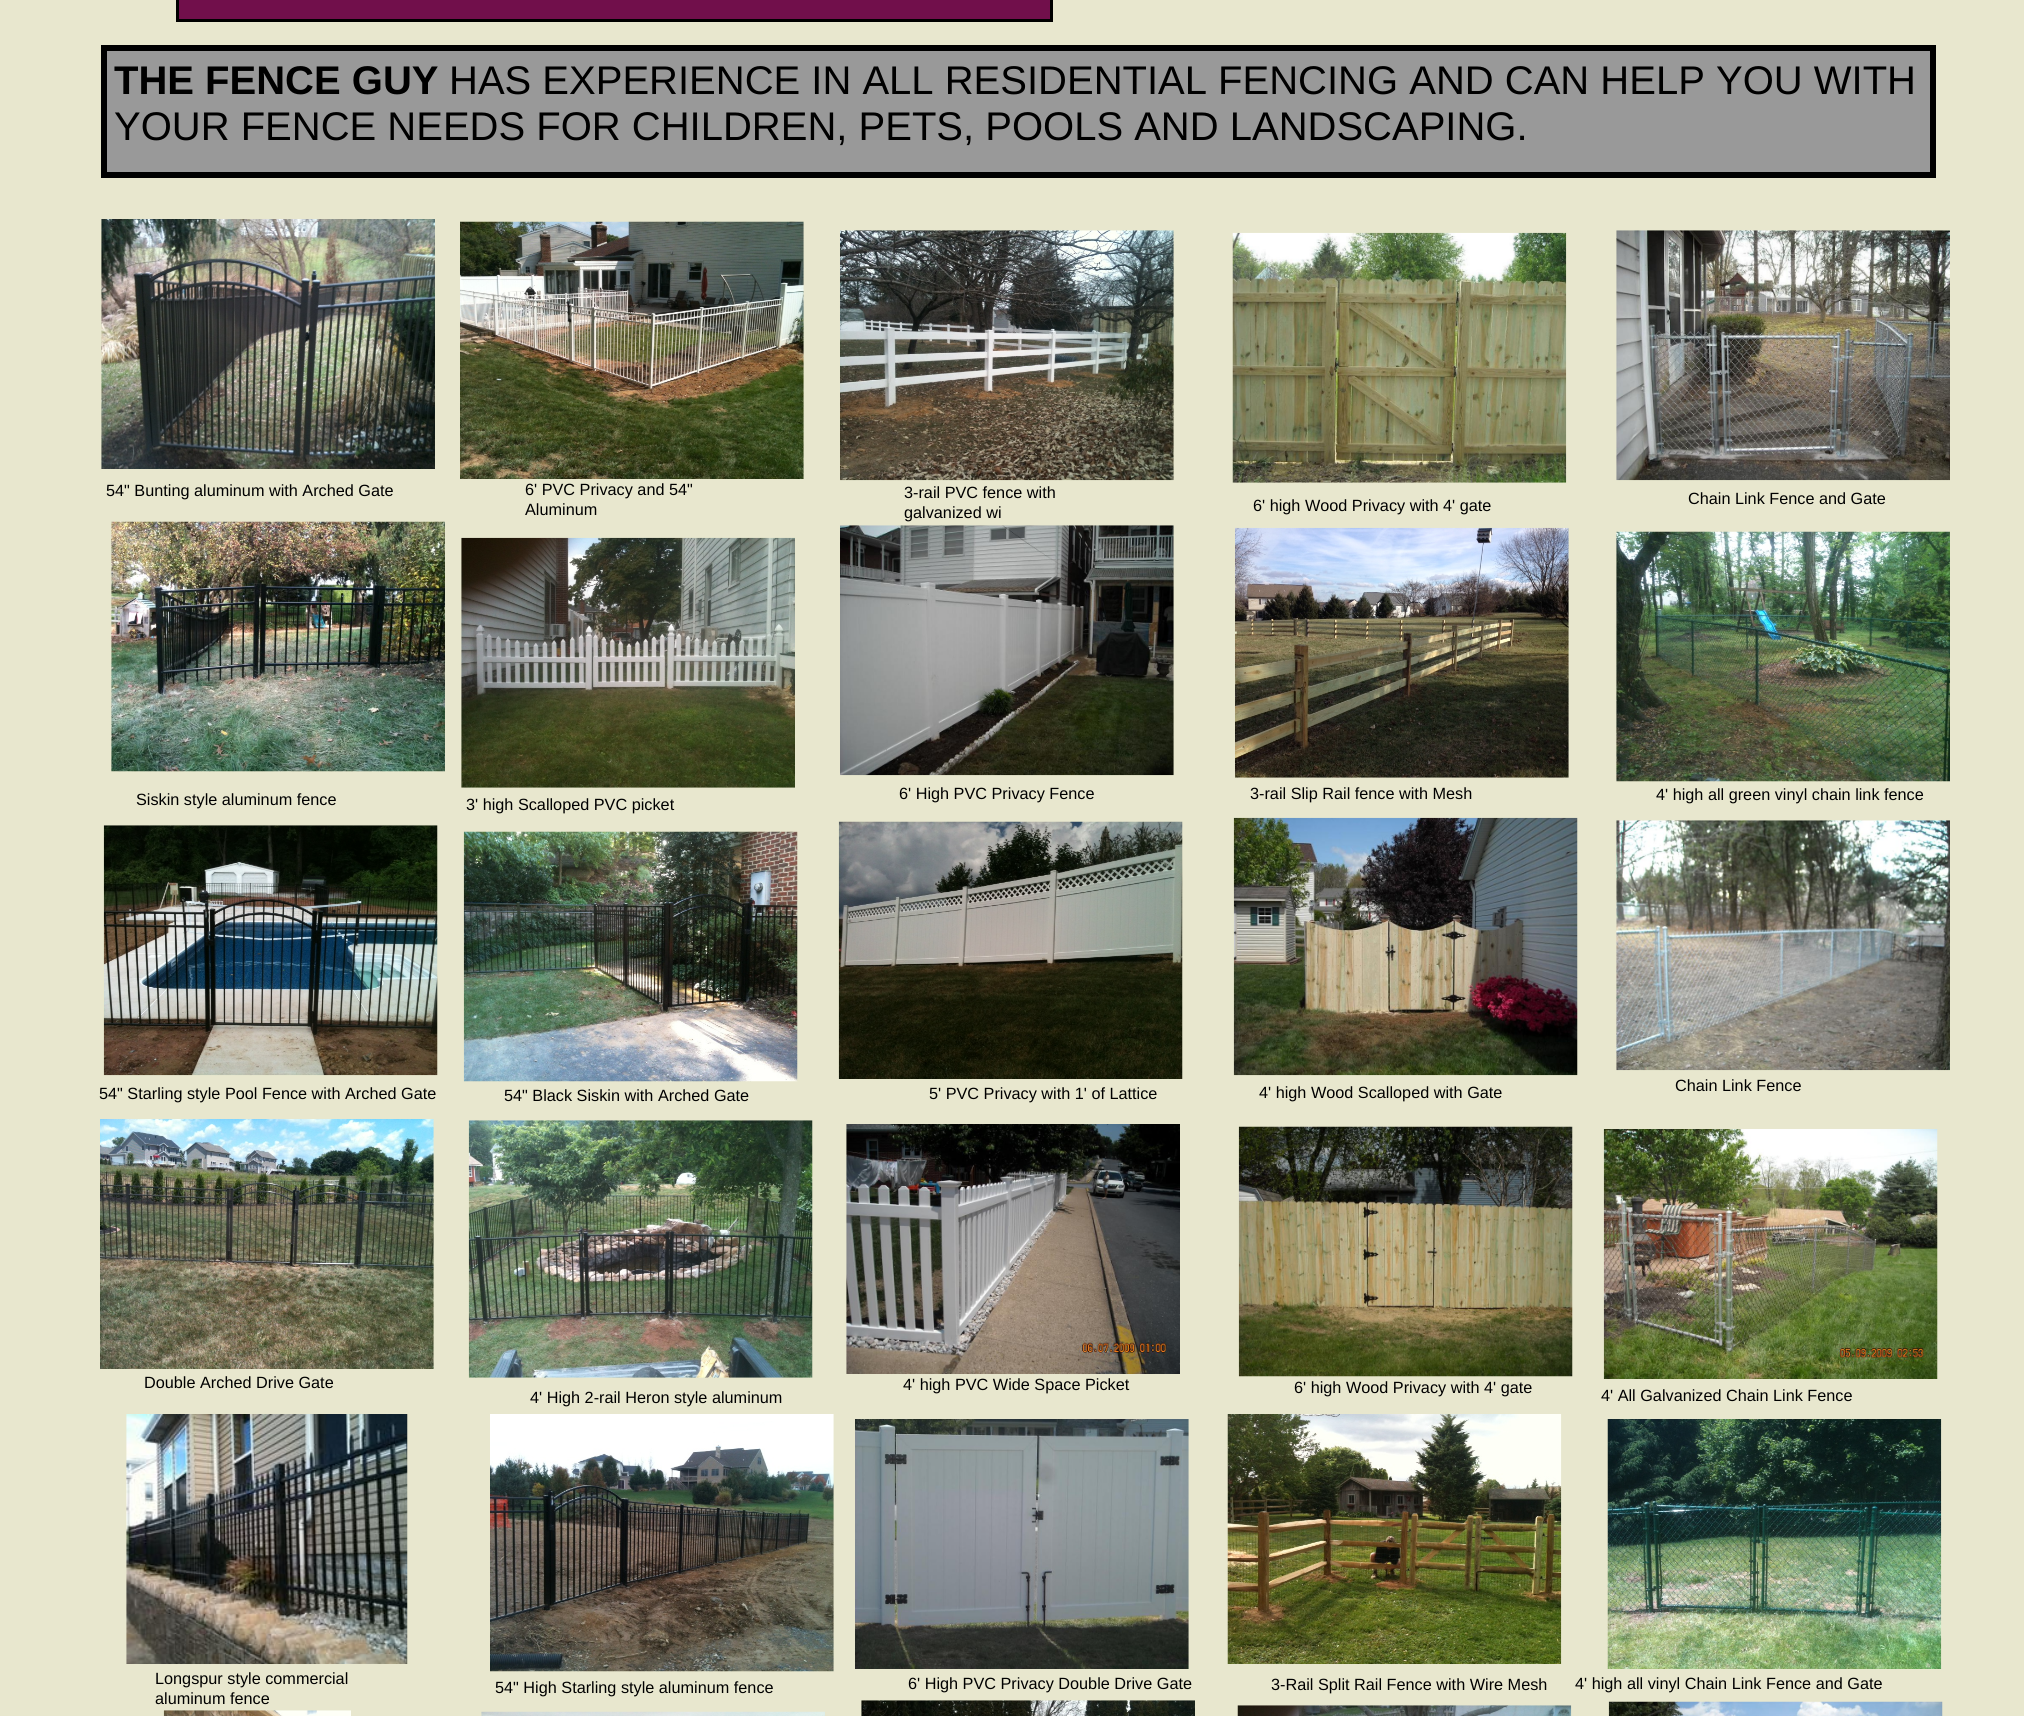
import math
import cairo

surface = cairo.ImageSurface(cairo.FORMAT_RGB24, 2024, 1716)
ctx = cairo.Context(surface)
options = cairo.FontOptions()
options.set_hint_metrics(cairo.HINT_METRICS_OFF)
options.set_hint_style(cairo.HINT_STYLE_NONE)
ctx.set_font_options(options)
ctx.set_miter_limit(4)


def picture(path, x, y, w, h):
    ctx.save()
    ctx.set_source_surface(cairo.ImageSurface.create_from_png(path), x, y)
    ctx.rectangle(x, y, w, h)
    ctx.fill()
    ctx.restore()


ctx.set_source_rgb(0.91, 0.906, 0.808)
ctx.paint()
ctx.set_source_rgb(0, 0, 0)
ctx.rectangle(176, 0, 3, 19)
ctx.fill()
ctx.set_source_rgb(0.443, 0.059, 0.294)
ctx.rectangle(179, 0, 871, 19)
ctx.fill()
ctx.set_source_rgb(0, 0, 0)
ctx.rectangle(1050, 0, 3, 19)
ctx.fill()
ctx.rectangle(176, 19, 877, 3)
ctx.fill()
ctx.set_source_rgb(0.6, 0.6, 0.6)
ctx.rectangle(104, 48, 1829, 127)
ctx.fill_preserve()
ctx.set_source_rgb(0, 0, 0)
ctx.set_line_width(6)
ctx.stroke()
ctx.select_font_face("Liberation Sans", cairo.FONT_SLANT_NORMAL, cairo.FONT_WEIGHT_BOLD)
ctx.set_font_size(40)
ctx.move_to(114, 94)
ctx.show_text("THE FENCE GUY")
ctx.select_font_face("Liberation Sans")
ctx.move_to(449, 94)
ctx.show_text("HAS EXPERIENCE IN ALL RESIDENTIAL FENCING AND CAN HELP YOU WITH")
ctx.move_to(114, 140)
ctx.show_text("YOUR FENCE NEEDS FOR CHILDREN, PETS, POOLS AND LANDSCAPING.")
picture("img1.png", 101, 219, 334, 250)
picture("img2.png", 460, 221, 344, 258)
picture("img3.png", 840, 230, 334, 251)
picture("img4.png", 1232, 232, 335, 251)
picture("img5.png", 1616, 230, 334, 251)
ctx.set_font_size(16.25)
ctx.move_to(106, 496)
ctx.show_text("54\" Bunting aluminum with Arched Gate")
ctx.move_to(525, 495)
ctx.show_text("6' PVC Privacy and 54\"")
ctx.move_to(525, 515)
ctx.show_text("Aluminum")
ctx.move_to(904, 498)
ctx.show_text("3-rail PVC fence with")
ctx.move_to(904, 518)
ctx.show_text("galvanized wi")
ctx.move_to(1253, 511)
ctx.show_text("6' high Wood Privacy with 4' gate")
ctx.move_to(1688, 504)
ctx.show_text("Chain Link Fence and Gate")
picture("img6.png", 111, 521, 334, 251)
picture("img7.png", 461, 537, 334, 251)
picture("img8.png", 840, 525, 334, 251)
picture("img9.png", 1235, 527, 334, 251)
picture("img10.png", 1616, 531, 334, 251)
ctx.move_to(136, 805)
ctx.show_text("Siskin style aluminum fence")
ctx.move_to(466, 810)
ctx.show_text("3' high Scalloped PVC picket")
ctx.move_to(899, 799)
ctx.show_text("6' High PVC Privacy Fence")
ctx.move_to(1250, 799)
ctx.show_text("3-rail Slip Rail fence with Mesh")
ctx.move_to(1656, 800)
ctx.show_text("4' high all green vinyl chain link fence")
picture("img11.png", 103, 825, 335, 251)
picture("img12.png", 463, 831, 335, 251)
picture("img13.png", 838, 821, 345, 258)
picture("img14.png", 1233, 817, 345, 259)
picture("img15.png", 1616, 820, 334, 251)
ctx.move_to(99, 1099)
ctx.show_text("54\" Starling style Pool Fence with Arched Gate")
ctx.move_to(504, 1101)
ctx.show_text("54\" Black Siskin with Arched Gate")
ctx.move_to(929, 1099)
ctx.show_text("5' PVC Privacy with 1' of Lattice")
ctx.move_to(1259, 1098)
ctx.show_text("4' high Wood Scalloped with Gate")
ctx.move_to(1675, 1091)
ctx.show_text("Chain Link Fence")
picture("img16.png", 100, 1119, 334, 250)
picture("img17.png", 468, 1120, 345, 258)
picture("img18.png", 846, 1124, 334, 250)
picture("img19.png", 1238, 1126, 335, 251)
picture("img20.png", 1603, 1129, 335, 250)
ctx.move_to(144, 1388)
ctx.show_text("Double Arched Drive Gate")
ctx.move_to(530, 1403)
ctx.show_text("4' High 2-rail Heron style aluminum")
ctx.move_to(903, 1390)
ctx.show_text("4' high PVC Wide Space Picket")
ctx.move_to(1294, 1393)
ctx.show_text("6' high Wood Privacy with 4' gate")
ctx.move_to(1601, 1401)
ctx.show_text("4' All Galvanized Chain Link Fence")
picture("img21.png", 126, 1414, 282, 250)
picture("img22.png", 490, 1414, 344, 258)
picture("img23.png", 855, 1419, 334, 250)
picture("img24.png", 1227, 1414, 335, 250)
picture("img25.png", 1607, 1419, 335, 250)
ctx.move_to(155, 1684)
ctx.show_text("Longspur style commercial")
ctx.move_to(155, 1704)
ctx.show_text("aluminum fence")
ctx.move_to(495, 1693)
ctx.show_text("54\" High Starling style aluminum fence")
ctx.move_to(908, 1689)
ctx.show_text("6' High PVC Privacy Double Drive Gate")
ctx.move_to(1271, 1690)
ctx.show_text("3-Rail Split Rail Fence with Wire Mesh")
ctx.move_to(1575, 1689)
ctx.show_text("4' high all vinyl Chain Link Fence and Gate")
picture("img26.png", 163, 1710, 188, 6)
picture("img27.png", 481, 1711, 344, 5)
picture("img28.png", 861, 1700, 334, 16)
picture("img29.png", 1237, 1705, 335, 11)
picture("img30.png", 1608, 1701, 335, 15)
surface.write_to_png("page.png")
